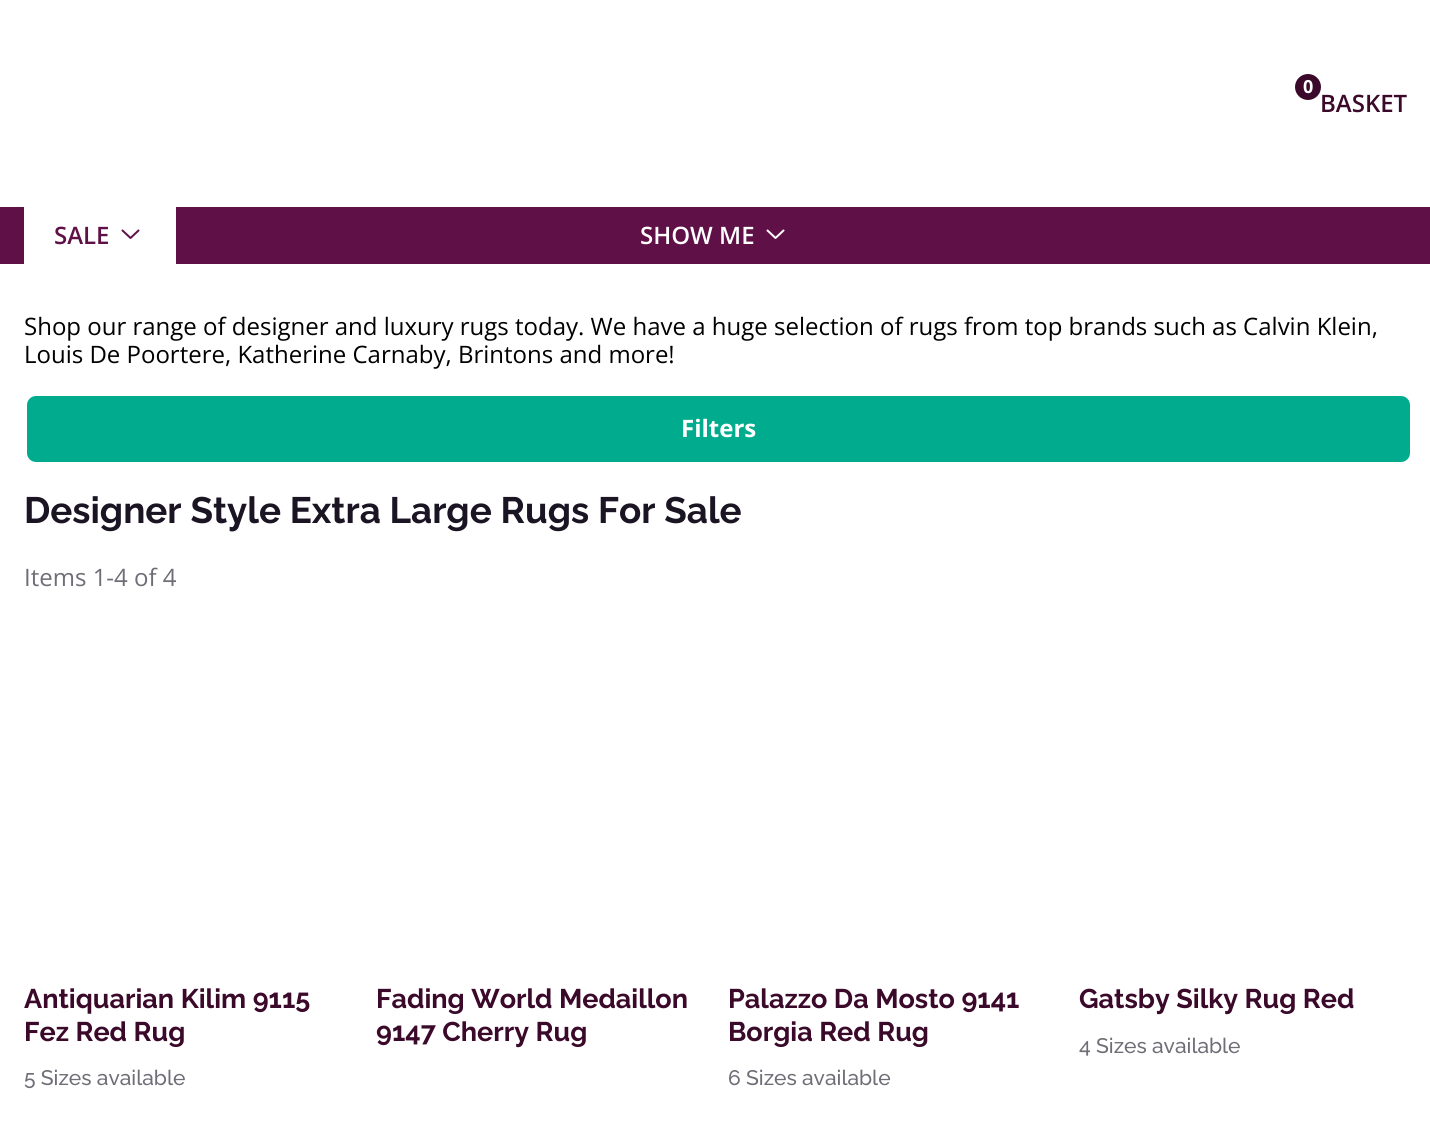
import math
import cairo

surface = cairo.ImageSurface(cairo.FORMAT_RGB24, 1430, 1132)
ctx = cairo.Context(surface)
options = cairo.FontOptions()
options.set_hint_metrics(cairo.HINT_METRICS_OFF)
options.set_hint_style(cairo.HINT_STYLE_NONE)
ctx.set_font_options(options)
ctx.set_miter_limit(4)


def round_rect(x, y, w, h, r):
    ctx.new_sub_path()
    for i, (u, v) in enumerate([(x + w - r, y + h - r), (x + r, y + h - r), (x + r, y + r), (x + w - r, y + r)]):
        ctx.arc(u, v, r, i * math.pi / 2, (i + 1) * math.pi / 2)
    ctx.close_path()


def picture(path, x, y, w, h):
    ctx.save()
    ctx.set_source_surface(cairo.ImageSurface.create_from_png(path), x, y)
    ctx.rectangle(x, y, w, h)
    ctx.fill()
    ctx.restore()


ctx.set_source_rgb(1, 1, 1)
ctx.paint()
ctx.set_source_rgb(0.231, 0.039, 0.165)
ctx.arc(1308, 87, 14, 0, 2 * math.pi)
ctx.fill_preserve()
ctx.set_source_rgb(1, 1, 1)
ctx.stroke()
ctx.select_font_face("Open Sans", cairo.FONT_SLANT_NORMAL, cairo.FONT_WEIGHT_BOLD)
ctx.set_font_size(18)
ctx.move_to(1303, 93)
ctx.show_text("0")
ctx.select_font_face("Open Sans SemiBold")
ctx.set_font_size(24)
ctx.set_source_rgb(0.231, 0.039, 0.165)
ctx.move_to(1320, 112)
ctx.show_text("BASKET")
ctx.set_source_rgb(0.373, 0.067, 0.278)
ctx.rectangle(0, 207, 1430, 57)
ctx.fill()
ctx.set_source_rgb(1, 1, 1)
ctx.rectangle(24, 207, 152, 57)
ctx.fill()
ctx.set_source_rgb(0.373, 0.067, 0.278)
ctx.move_to(54, 244)
ctx.show_text("SALE")
picture("img1.png", 121, 229, 19, 10)
ctx.set_source_rgb(1, 1, 1)
ctx.move_to(640, 244)
ctx.show_text("SHOW ME")
picture("img2.png", 766, 229, 19, 10)
ctx.select_font_face("Open Sans")
ctx.set_source_rgb(0, 0, 0)
ctx.move_to(24, 335)
ctx.show_text("Shop our range of designer and luxury rugs today. We have a huge selection of rugs from top brands such as Calvin Klein,")
ctx.move_to(24, 363)
ctx.show_text("Louis De Poortere, Katherine Carnaby, Brintons and more!")
ctx.set_source_rgb(0, 0.675, 0.553)
round_rect(27, 396, 1383, 66, 9)
ctx.fill()
ctx.select_font_face("Open Sans", cairo.FONT_SLANT_NORMAL, cairo.FONT_WEIGHT_BOLD)
ctx.set_source_rgb(1, 1, 1)
ctx.move_to(681, 437)
ctx.show_text("Filters")
ctx.select_font_face("Raleway", cairo.FONT_SLANT_NORMAL, cairo.FONT_WEIGHT_BOLD)
ctx.set_font_size(36.75)
ctx.set_source_rgb(0.102, 0.082, 0.137)
ctx.move_to(24, 523)
ctx.show_text("Designer Style Extra Large Rugs For Sale")
ctx.select_font_face("Open Sans")
ctx.set_font_size(24)
ctx.set_source_rgb(0.435, 0.431, 0.467)
ctx.move_to(24, 586)
ctx.show_text("Items 1-4 of 4")
ctx.select_font_face("Raleway", cairo.FONT_SLANT_NORMAL, cairo.FONT_WEIGHT_BOLD)
ctx.set_font_size(27)
ctx.set_source_rgb(0.231, 0.039, 0.165)
ctx.move_to(24, 1008)
ctx.show_text("Antiquarian Kilim 9115")
ctx.move_to(24, 1041)
ctx.show_text("Fez Red Rug")
ctx.select_font_face("Raleway Medium")
ctx.set_font_size(21)
ctx.set_source_rgb(0.435, 0.431, 0.467)
ctx.move_to(24, 1085)
ctx.show_text("5 Sizes available")
ctx.select_font_face("Raleway", cairo.FONT_SLANT_NORMAL, cairo.FONT_WEIGHT_BOLD)
ctx.set_font_size(27)
ctx.set_source_rgb(0.231, 0.039, 0.165)
ctx.move_to(376, 1008)
ctx.show_text("Fading World Medaillon")
ctx.move_to(376, 1041)
ctx.show_text("9147 Cherry Rug")
ctx.move_to(728, 1008)
ctx.show_text("Palazzo Da Mosto 9141")
ctx.move_to(728, 1041)
ctx.show_text("Borgia Red Rug")
ctx.select_font_face("Raleway Medium")
ctx.set_font_size(21)
ctx.set_source_rgb(0.435, 0.431, 0.467)
ctx.move_to(728, 1085)
ctx.show_text("6 Sizes available")
ctx.select_font_face("Raleway", cairo.FONT_SLANT_NORMAL, cairo.FONT_WEIGHT_BOLD)
ctx.set_font_size(27)
ctx.set_source_rgb(0.231, 0.039, 0.165)
ctx.move_to(1079, 1008)
ctx.show_text("Gatsby Silky Rug Red")
ctx.select_font_face("Raleway Medium")
ctx.set_font_size(21)
ctx.set_source_rgb(0.435, 0.431, 0.467)
ctx.move_to(1079, 1053)
ctx.show_text("4 Sizes available")
surface.write_to_png("page.png")
